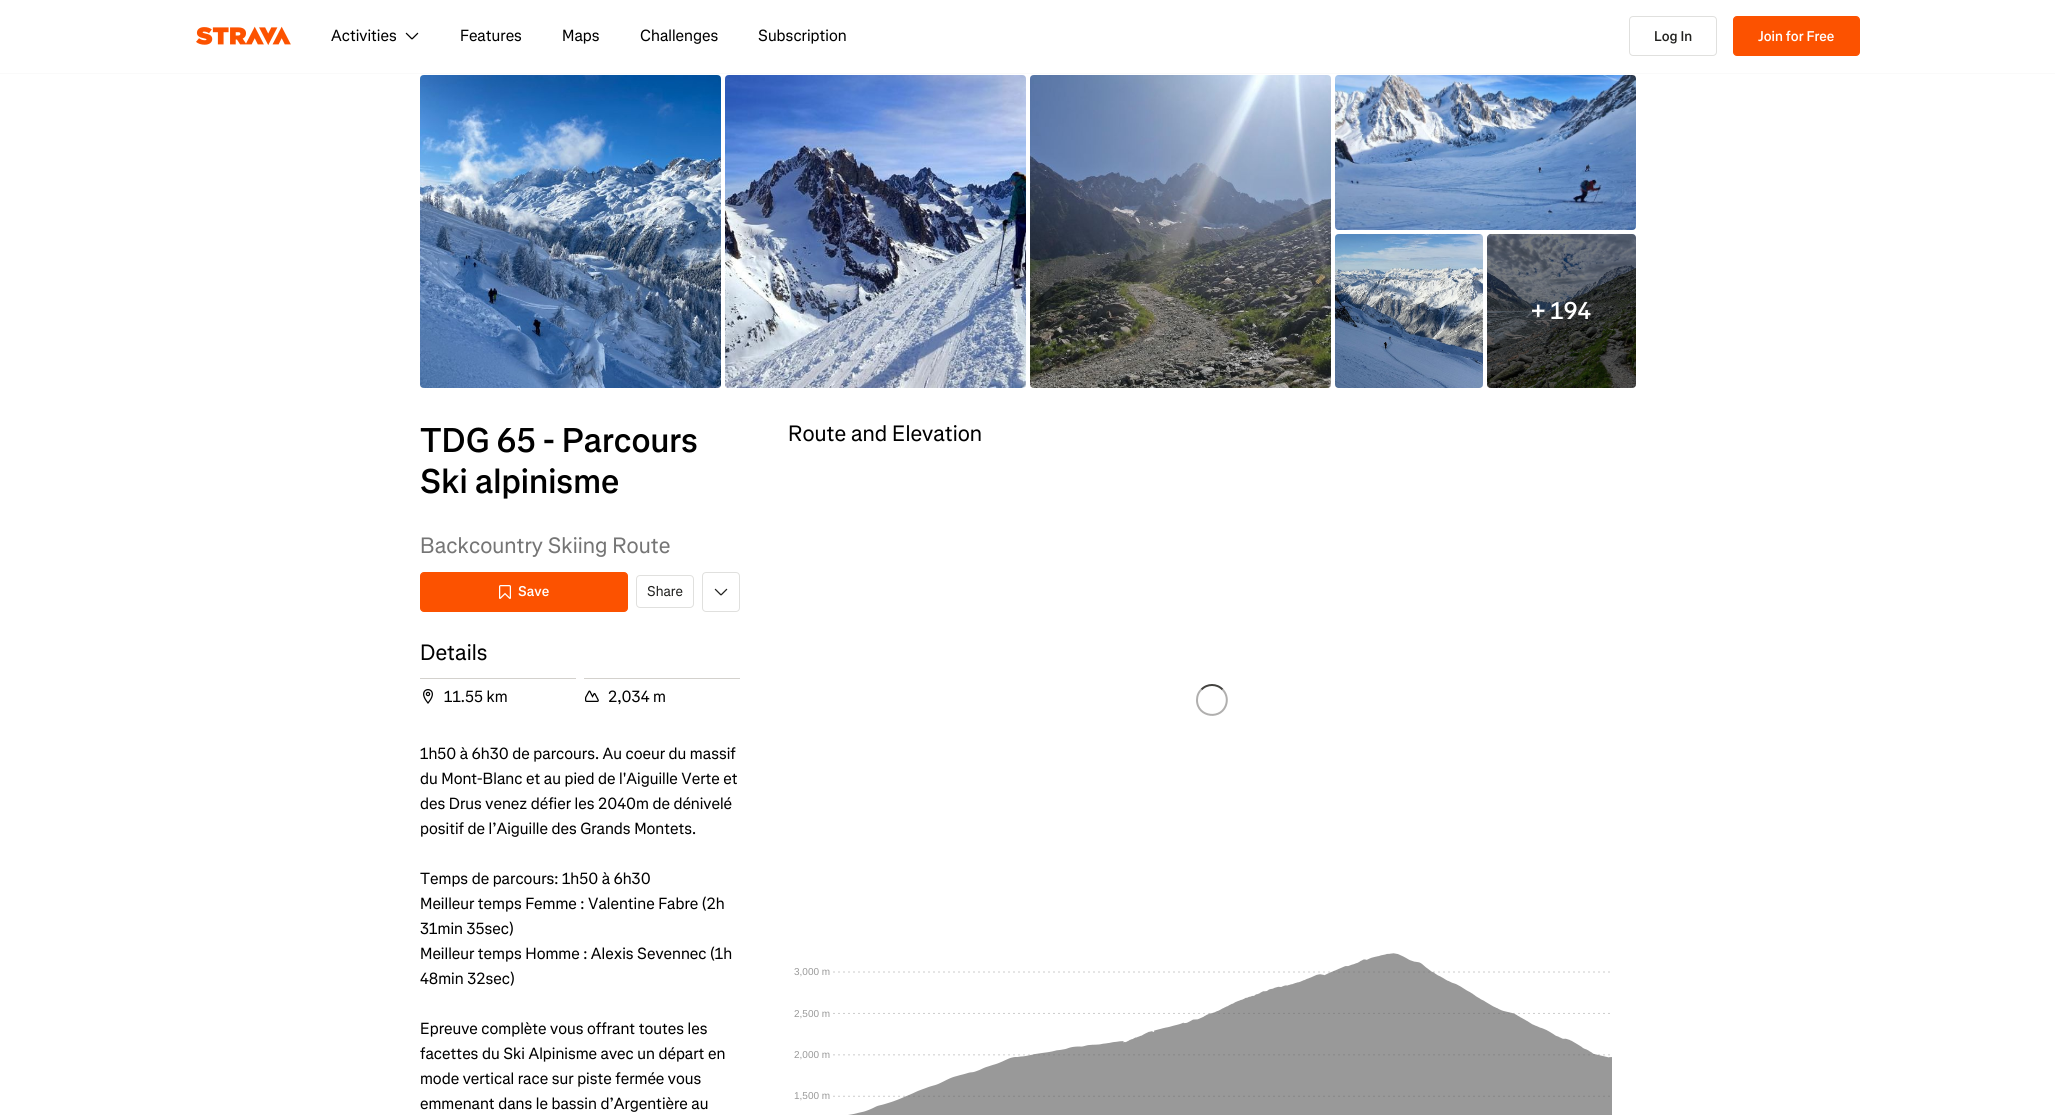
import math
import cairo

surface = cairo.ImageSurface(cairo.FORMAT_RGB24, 2055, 1115)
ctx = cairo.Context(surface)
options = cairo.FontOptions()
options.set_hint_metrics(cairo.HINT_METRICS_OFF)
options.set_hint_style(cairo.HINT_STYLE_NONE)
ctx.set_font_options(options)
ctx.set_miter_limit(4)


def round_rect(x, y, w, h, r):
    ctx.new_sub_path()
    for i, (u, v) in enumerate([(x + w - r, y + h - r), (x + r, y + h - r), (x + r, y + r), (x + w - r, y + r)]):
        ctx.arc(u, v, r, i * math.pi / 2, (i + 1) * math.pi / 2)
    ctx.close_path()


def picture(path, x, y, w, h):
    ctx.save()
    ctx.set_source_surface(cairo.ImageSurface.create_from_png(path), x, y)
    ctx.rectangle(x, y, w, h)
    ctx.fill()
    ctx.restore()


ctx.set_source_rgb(1, 1, 1)
ctx.paint()
ctx.set_source_rgb(0.98, 0.98, 0.98)
ctx.rectangle(0, 73, 2055, 1)
ctx.fill()
picture("img1.png", 196, 26, 95, 19)
ctx.select_font_face("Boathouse")
ctx.set_font_size(16)
ctx.set_source_rgb(0, 0, 0)
ctx.move_to(331, 41)
ctx.show_text("Activities")
picture("img2.png", 405, 32, 14, 8)
ctx.move_to(460, 41)
ctx.show_text("Features")
ctx.move_to(562, 41)
ctx.show_text("Maps")
ctx.move_to(640, 41)
ctx.show_text("Challenges")
ctx.move_to(758, 41)
ctx.show_text("Subscription")
round_rect(1629.5, 16.5, 87, 39, 3.5)
ctx.set_source_rgb(0.878, 0.878, 0.871)
ctx.set_line_width(1)
ctx.stroke()
ctx.select_font_face("Boathouse Medium")
ctx.set_font_size(14)
ctx.set_source_rgb(0.129, 0.129, 0.122)
ctx.move_to(1654, 41)
ctx.show_text("Log In")
ctx.set_source_rgb(0.988, 0.322, 0)
round_rect(1733.5, 16.5, 126, 39, 3.5)
ctx.fill_preserve()
ctx.stroke()
ctx.set_source_rgb(1, 1, 1)
ctx.move_to(1758, 41)
ctx.show_text("Join for Free")
picture("img3.png", 420, 75, 301, 313)
picture("img4.png", 725, 75, 301, 313)
picture("img5.png", 1030, 75, 301, 313)
picture("img6.png", 1335, 75, 301, 155)
picture("img7.png", 1335, 234, 148, 154)
picture("img8.png", 1487, 234, 149, 154)
ctx.set_source_rgba(0, 0, 0, 0.5)
round_rect(1487, 234, 149, 154, 4)
ctx.fill()
ctx.set_font_size(24)
ctx.set_source_rgb(1, 1, 1)
ctx.move_to(1531, 319)
ctx.show_text("+ 194")
ctx.set_font_size(34)
ctx.set_source_rgb(0, 0, 0)
ctx.move_to(420, 452)
ctx.show_text("TDG 65 - Parcours")
ctx.move_to(420, 493)
ctx.show_text("Ski alpinisme")
ctx.select_font_face("Boathouse")
ctx.set_font_size(22)
ctx.set_source_rgb(0.459, 0.459, 0.459)
ctx.move_to(420, 553)
ctx.show_text("Backcountry Skiing Route")
ctx.set_source_rgb(0.988, 0.322, 0)
round_rect(420.5, 572.5, 207, 39, 3.5)
ctx.fill_preserve()
ctx.stroke()
picture("img9.png", 499, 585, 12, 14)
ctx.select_font_face("Boathouse Medium")
ctx.set_font_size(14)
ctx.set_source_rgb(1, 1, 1)
ctx.move_to(518, 596)
ctx.show_text("Save")
round_rect(636.5, 575.5, 57, 32, 3.5)
ctx.set_source_rgb(0.878, 0.878, 0.871)
ctx.stroke()
ctx.select_font_face("Boathouse")
ctx.set_source_rgb(0.129, 0.129, 0.122)
ctx.move_to(647, 596)
ctx.show_text("Share")
round_rect(702.5, 572.5, 37, 39, 3.5)
ctx.set_source_rgb(0.878, 0.878, 0.871)
ctx.stroke()
picture("img10.png", 714, 588, 14, 8)
ctx.set_font_size(22)
ctx.set_source_rgb(0, 0, 0)
ctx.move_to(420, 660)
ctx.show_text("Details")
ctx.set_source_rgb(0.827, 0.82, 0.804)
ctx.rectangle(420, 678, 156, 1)
ctx.fill()
picture("img11.png", 423, 689, 10, 15)
ctx.set_font_size(16)
ctx.set_source_rgb(0, 0, 0)
ctx.move_to(444, 702)
ctx.show_text("11.55 km")
ctx.set_source_rgb(0.827, 0.82, 0.804)
ctx.rectangle(584, 678, 156, 1)
ctx.fill()
picture("img12.png", 585, 690, 14, 12)
ctx.set_source_rgb(0, 0, 0)
ctx.move_to(608, 702)
ctx.show_text("2,034 m")
ctx.move_to(420, 759)
ctx.show_text("1h50 à 6h30 de parcours. Au coeur du massif")
ctx.move_to(420, 784)
ctx.show_text("du Mont-Blanc et au pied de l'Aiguille Verte et")
ctx.move_to(420, 809)
ctx.show_text("des Drus venez défier les 2040m de dénivelé")
ctx.move_to(420, 834)
ctx.show_text("positif de l’Aiguille des Grands Montets.")
ctx.move_to(420, 884)
ctx.show_text("Temps de parcours: 1h50 à 6h30")
ctx.move_to(420, 909)
ctx.show_text("Meilleur temps Femme : Valentine Fabre (2h")
ctx.move_to(420, 934)
ctx.show_text("31min 35sec)")
ctx.move_to(420, 959)
ctx.show_text("Meilleur temps Homme : Alexis Sevennec (1h")
ctx.move_to(420, 984)
ctx.show_text("48min 32sec)")
ctx.move_to(420, 1034)
ctx.show_text("Epreuve complète vous offrant toutes les")
ctx.move_to(420, 1059)
ctx.show_text("facettes du Ski Alpinisme avec un départ en")
ctx.move_to(420, 1084)
ctx.show_text("mode vertical race sur piste fermée vous")
ctx.move_to(420, 1109)
ctx.show_text("emmenant dans le bassin d’Argentière au")
ctx.set_font_size(22)
ctx.move_to(788, 441)
ctx.show_text("Route and Elevation")
ctx.new_path()
ctx.move_to(1201.5, 689.5)
ctx.curve_to(1207, 683.5, 1217, 683.5, 1222.5, 689.5)
ctx.set_source_rgb(0.263, 0.259, 0.247)
ctx.set_line_width(2)
ctx.stroke()
ctx.new_path()
ctx.move_to(1222.5, 689.5)
ctx.curve_to(1226, 693, 1227.5, 698, 1226.5, 703)
ctx.curve_to(1223, 720.5, 1197, 718, 1197, 700)
ctx.curve_to(1197, 696, 1198.5, 692, 1201.5, 689.5)
ctx.set_source_rgba(0.263, 0.259, 0.247, 0.42)
ctx.stroke()
ctx.select_font_face("Liberation Sans")
ctx.set_font_size(10)
ctx.set_source_rgb(0.6, 0.6, 0.6)
ctx.move_to(794, 975)
ctx.show_text("3,000 m")
picture("img13.png", 833, 953, 779, 162)
ctx.move_to(794, 1017)
ctx.show_text("2,500 m")
ctx.move_to(794, 1058)
ctx.show_text("2,000 m")
ctx.move_to(794, 1099)
ctx.show_text("1,500 m")
surface.write_to_png("page.png")
